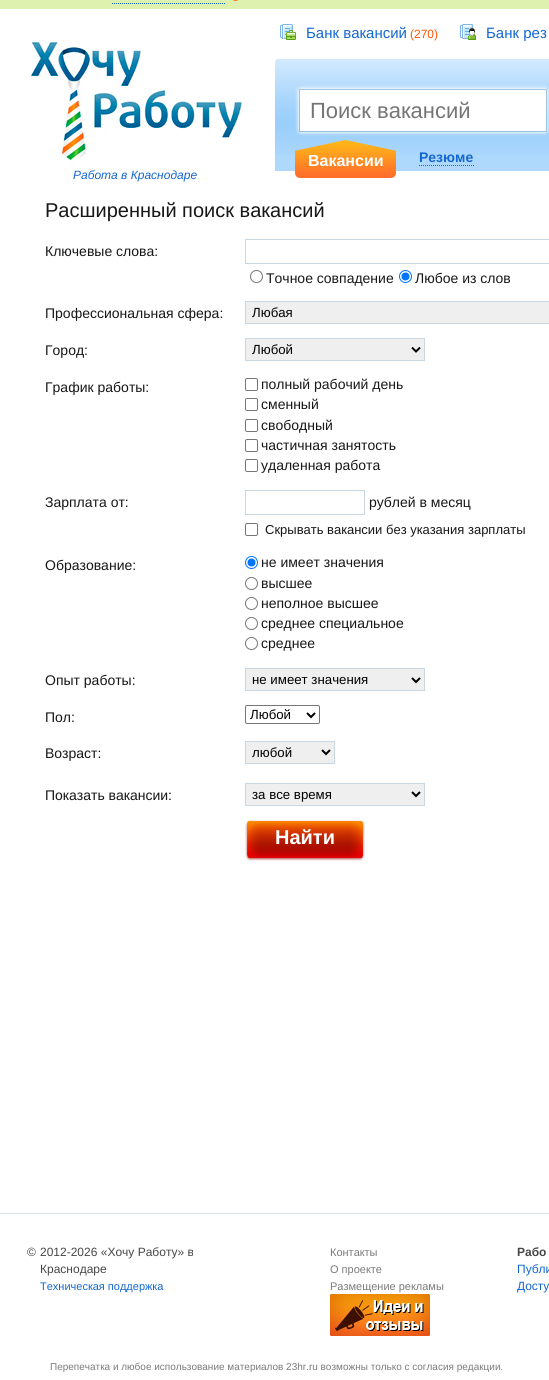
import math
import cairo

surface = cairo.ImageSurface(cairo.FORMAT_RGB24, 549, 1380)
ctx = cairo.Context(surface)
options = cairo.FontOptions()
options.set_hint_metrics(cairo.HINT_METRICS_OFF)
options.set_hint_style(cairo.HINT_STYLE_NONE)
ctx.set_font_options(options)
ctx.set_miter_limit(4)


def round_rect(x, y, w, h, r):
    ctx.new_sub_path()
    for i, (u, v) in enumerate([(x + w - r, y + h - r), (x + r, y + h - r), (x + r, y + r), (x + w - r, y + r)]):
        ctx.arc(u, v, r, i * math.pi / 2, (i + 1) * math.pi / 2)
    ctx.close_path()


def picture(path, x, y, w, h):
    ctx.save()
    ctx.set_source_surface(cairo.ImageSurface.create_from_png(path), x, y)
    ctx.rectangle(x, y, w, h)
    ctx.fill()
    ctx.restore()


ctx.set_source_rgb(1, 1, 1)
ctx.paint()
ctx.set_source_rgb(0.875, 0.945, 0.686)
ctx.rectangle(0, 0, 549, 9)
ctx.fill()
picture("img1.png", 233, 0, 6, 1)
ctx.new_path()
ctx.move_to(112, 3.5)
ctx.line_to(226, 3.5)
ctx.set_source_rgb(0.075, 0.404, 0.82)
ctx.set_line_width(1)
ctx.set_dash([1, 1])
ctx.stroke()
picture("img2.png", 280, 24, 16, 16)
ctx.select_font_face("Liberation Sans")
ctx.set_font_size(15)
ctx.move_to(306, 38)
ctx.show_text("Банк вакансий")
ctx.set_font_size(12)
ctx.set_source_rgb(1, 0.329, 0)
ctx.move_to(410, 38)
ctx.show_text("(270)")
picture("img3.png", 460, 24, 16, 16)
ctx.set_font_size(15)
ctx.set_source_rgb(0.075, 0.404, 0.82)
ctx.move_to(486, 38)
ctx.show_text("Банк рез")
ctx.set_source_rgb(0.686, 0.851, 0.988)
ctx.rectangle(275, 155, 274, 16)
ctx.fill()
picture("img4.png", 275, 59, 274, 96)
picture("img5.png", 275, 59, 2, 2)
picture("img6.png", 301, 85, 244, 51)
picture("img7.png", 295, 86, 6, 49)
ctx.set_font_size(22)
ctx.set_source_rgb(0.459, 0.459, 0.459)
ctx.move_to(310, 118)
ctx.show_text("Поиск вакансий")
picture("img8.png", 545, 86, 4, 49)
picture("img9.png", 295, 140, 101, 38)
ctx.select_font_face("Liberation Sans", cairo.FONT_SLANT_NORMAL, cairo.FONT_WEIGHT_BOLD)
ctx.set_font_size(16)
ctx.set_source_rgb(1, 1, 1)
ctx.move_to(308, 166)
ctx.show_text("Вакансии")
ctx.set_font_size(14)
ctx.set_source_rgb(0.075, 0.404, 0.82)
ctx.move_to(419, 162)
ctx.show_text("Резюме")
ctx.new_path()
ctx.move_to(419, 165.5)
ctx.line_to(474, 165.5)
ctx.stroke()
picture("img10.png", 30, 39, 212, 127)
ctx.select_font_face("Liberation Sans", cairo.FONT_SLANT_ITALIC)
ctx.set_font_size(12)
ctx.move_to(73, 179)
ctx.show_text("Работа в Краснодаре")
ctx.select_font_face("Liberation Sans")
ctx.set_font_size(20)
ctx.set_source_rgb(0.09, 0.09, 0.09)
ctx.move_to(45, 217)
ctx.show_text("Расширенный поиск вакансий")
ctx.set_font_size(14)
ctx.move_to(45, 256)
ctx.show_text("Ключевые слова:")
ctx.rectangle(245.5, 239.5, 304, 24)
ctx.set_source_rgb(0.784, 0.843, 0.886)
ctx.set_dash([])
ctx.stroke()
ctx.arc(256.5, 276.5, 6, 0, 2 * math.pi)
ctx.set_source_rgb(0.463, 0.463, 0.463)
ctx.stroke()
ctx.set_source_rgb(0.09, 0.09, 0.09)
ctx.move_to(266, 283)
ctx.show_text("Точное совпадение")
ctx.new_path()
ctx.arc(405.5, 276.5, 6, 0, 2 * math.pi)
ctx.set_source_rgb(0, 0.459, 1)
ctx.stroke()
ctx.arc(405.5, 276.5, 4, 0, 2 * math.pi)
ctx.fill()
ctx.set_source_rgb(0.09, 0.09, 0.09)
ctx.move_to(415, 283)
ctx.show_text("Любое из слов")
ctx.move_to(45, 318)
ctx.show_text("Профессиональная сфера:")
ctx.set_source_rgb(0.937, 0.937, 0.937)
ctx.rectangle(245.5, 301.5, 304, 22)
ctx.fill_preserve()
ctx.set_source_rgb(0.784, 0.843, 0.886)
ctx.stroke()
ctx.set_font_size(13.25)
ctx.set_source_rgb(0, 0, 0)
ctx.move_to(252, 317)
ctx.show_text("Любая")
ctx.set_font_size(14)
ctx.set_source_rgb(0.09, 0.09, 0.09)
ctx.move_to(45, 355)
ctx.show_text("Город:")
ctx.set_source_rgb(0.937, 0.937, 0.937)
ctx.rectangle(245.5, 338.5, 179, 22)
ctx.fill_preserve()
ctx.set_source_rgb(0.784, 0.843, 0.886)
ctx.stroke()
ctx.new_path()
ctx.move_to(412, 347.5)
ctx.line_to(416, 351.5)
ctx.line_to(420, 347.5)
ctx.set_source_rgb(0, 0, 0)
ctx.set_line_width(2)
ctx.stroke()
ctx.set_font_size(13.25)
ctx.move_to(252, 354)
ctx.show_text("Любой")
ctx.set_font_size(14)
ctx.set_source_rgb(0.09, 0.09, 0.09)
ctx.move_to(45, 392)
ctx.show_text("График работы:")
round_rect(245.5, 378.5, 12, 12, 1.5)
ctx.set_source_rgb(0.463, 0.463, 0.463)
ctx.set_line_width(1)
ctx.stroke()
ctx.set_source_rgb(0.09, 0.09, 0.09)
ctx.move_to(261, 389)
ctx.show_text("полный рабочий день")
round_rect(245.5, 398.5, 12, 12, 1.5)
ctx.set_source_rgb(0.463, 0.463, 0.463)
ctx.stroke()
ctx.set_source_rgb(0.09, 0.09, 0.09)
ctx.move_to(261, 409)
ctx.show_text("сменный")
round_rect(245.5, 419.5, 12, 12, 1.5)
ctx.set_source_rgb(0.463, 0.463, 0.463)
ctx.stroke()
ctx.set_source_rgb(0.09, 0.09, 0.09)
ctx.move_to(261, 430)
ctx.show_text("свободный")
round_rect(245.5, 439.5, 12, 12, 1.5)
ctx.set_source_rgb(0.463, 0.463, 0.463)
ctx.stroke()
ctx.set_source_rgb(0.09, 0.09, 0.09)
ctx.move_to(261, 450)
ctx.show_text("частичная занятость")
round_rect(245.5, 459.5, 12, 12, 1.5)
ctx.set_source_rgb(0.463, 0.463, 0.463)
ctx.stroke()
ctx.set_source_rgb(0.09, 0.09, 0.09)
ctx.move_to(261, 470)
ctx.show_text("удаленная работа")
ctx.move_to(45, 507)
ctx.show_text("Зарплата от:")
ctx.rectangle(245.5, 490.5, 119, 24)
ctx.set_source_rgb(0.784, 0.843, 0.886)
ctx.stroke()
ctx.set_source_rgb(0.09, 0.09, 0.09)
ctx.move_to(369, 507)
ctx.show_text("рублей в месяц")
round_rect(245.5, 523.5, 12, 12, 1.5)
ctx.set_source_rgb(0.463, 0.463, 0.463)
ctx.stroke()
ctx.set_font_size(13)
ctx.set_source_rgb(0.09, 0.09, 0.09)
ctx.move_to(265, 534)
ctx.show_text("Скрывать вакансии без указания зарплаты")
ctx.set_font_size(14)
ctx.move_to(45, 570)
ctx.show_text("Образование:")
ctx.new_path()
ctx.arc(251.5, 562.5, 6, 0, 2 * math.pi)
ctx.set_source_rgb(0, 0.459, 1)
ctx.stroke()
ctx.arc(251.5, 562.5, 4, 0, 2 * math.pi)
ctx.fill()
ctx.set_source_rgb(0.09, 0.09, 0.09)
ctx.move_to(261, 567)
ctx.show_text("не имеет значения")
ctx.new_path()
ctx.arc(251.5, 583.5, 6, 0, 2 * math.pi)
ctx.set_source_rgb(0.463, 0.463, 0.463)
ctx.stroke()
ctx.set_source_rgb(0.09, 0.09, 0.09)
ctx.move_to(261, 588)
ctx.show_text("высшее")
ctx.new_path()
ctx.arc(251.5, 603.5, 6, 0, 2 * math.pi)
ctx.set_source_rgb(0.463, 0.463, 0.463)
ctx.stroke()
ctx.set_source_rgb(0.09, 0.09, 0.09)
ctx.move_to(261, 608)
ctx.show_text("неполное высшее")
ctx.new_path()
ctx.arc(251.5, 623.5, 6, 0, 2 * math.pi)
ctx.set_source_rgb(0.463, 0.463, 0.463)
ctx.stroke()
ctx.set_source_rgb(0.09, 0.09, 0.09)
ctx.move_to(261, 628)
ctx.show_text("среднее специальное")
ctx.new_path()
ctx.arc(251.5, 643.5, 6, 0, 2 * math.pi)
ctx.set_source_rgb(0.463, 0.463, 0.463)
ctx.stroke()
ctx.set_source_rgb(0.09, 0.09, 0.09)
ctx.move_to(261, 648)
ctx.show_text("среднее")
ctx.move_to(45, 685)
ctx.show_text("Опыт работы:")
ctx.set_source_rgb(0.937, 0.937, 0.937)
ctx.rectangle(245.5, 668.5, 179, 22)
ctx.fill_preserve()
ctx.set_source_rgb(0.784, 0.843, 0.886)
ctx.stroke()
ctx.new_path()
ctx.move_to(412, 678)
ctx.line_to(416, 682)
ctx.line_to(420, 678)
ctx.set_source_rgb(0, 0, 0)
ctx.set_line_width(2)
ctx.stroke()
ctx.set_font_size(13.25)
ctx.move_to(252, 684)
ctx.show_text("не имеет значения")
ctx.set_font_size(14)
ctx.set_source_rgb(0.09, 0.09, 0.09)
ctx.move_to(45, 722)
ctx.show_text("Пол:")
round_rect(245.5, 705.5, 74, 18, 1.5)
ctx.set_source_rgb(0.463, 0.463, 0.463)
ctx.set_line_width(1)
ctx.stroke()
ctx.new_path()
ctx.move_to(307, 713)
ctx.line_to(311, 717)
ctx.line_to(315, 713)
ctx.set_source_rgb(0, 0, 0)
ctx.set_line_width(2)
ctx.stroke()
ctx.set_font_size(13.25)
ctx.move_to(250, 719)
ctx.show_text("Любой")
ctx.set_font_size(14)
ctx.set_source_rgb(0.09, 0.09, 0.09)
ctx.move_to(45, 758)
ctx.show_text("Возраст:")
ctx.set_source_rgb(0.937, 0.937, 0.937)
ctx.rectangle(245.5, 741.5, 89, 22)
ctx.fill_preserve()
ctx.set_source_rgb(0.784, 0.843, 0.886)
ctx.set_line_width(1)
ctx.stroke()
ctx.new_path()
ctx.move_to(322, 750)
ctx.line_to(326, 754)
ctx.line_to(330, 750)
ctx.set_source_rgb(0, 0, 0)
ctx.set_line_width(2)
ctx.stroke()
ctx.set_font_size(13.25)
ctx.move_to(252, 757)
ctx.show_text("любой")
ctx.set_font_size(14)
ctx.set_source_rgb(0.09, 0.09, 0.09)
ctx.move_to(45, 800)
ctx.show_text("Показать вакансии:")
ctx.set_source_rgb(0.937, 0.937, 0.937)
ctx.rectangle(245.5, 783.5, 179, 22)
ctx.fill_preserve()
ctx.set_source_rgb(0.784, 0.843, 0.886)
ctx.set_line_width(1)
ctx.stroke()
ctx.new_path()
ctx.move_to(412, 792)
ctx.line_to(416, 796)
ctx.line_to(420, 792)
ctx.set_source_rgb(0, 0, 0)
ctx.set_line_width(2)
ctx.stroke()
ctx.set_font_size(13.25)
ctx.move_to(252, 799)
ctx.show_text("за все время")
picture("img11.png", 245, 820, 106, 41)
picture("img12.png", 351, 820, 14, 41)
ctx.select_font_face("Liberation Sans", cairo.FONT_SLANT_NORMAL, cairo.FONT_WEIGHT_BOLD)
ctx.set_font_size(20)
ctx.set_source_rgb(1, 1, 1)
ctx.move_to(275, 844)
ctx.show_text("Найти")
ctx.set_source_rgb(0.843, 0.886, 0.914)
ctx.rectangle(0, 1213, 549, 1)
ctx.fill()
ctx.select_font_face("Liberation Sans")
ctx.set_font_size(12)
ctx.set_source_rgb(0.282, 0.278, 0.278)
ctx.move_to(27, 1256)
ctx.show_text("©")
ctx.move_to(40, 1256)
ctx.show_text("2012-2026 «Хочу Работу» в")
ctx.move_to(40, 1273)
ctx.show_text("Краснодаре")
ctx.set_font_size(11)
ctx.set_source_rgb(0.075, 0.404, 0.82)
ctx.move_to(40, 1290)
ctx.show_text("Техническая поддержка")
ctx.set_source_rgb(0.482, 0.482, 0.482)
ctx.move_to(330, 1256)
ctx.show_text("Контакты")
ctx.move_to(330, 1273)
ctx.show_text("О проекте")
ctx.move_to(330, 1290)
ctx.show_text("Размещение рекламы")
picture("img13.png", 330, 1294, 100, 42)
ctx.select_font_face("Liberation Sans", cairo.FONT_SLANT_NORMAL, cairo.FONT_WEIGHT_BOLD)
ctx.set_font_size(12)
ctx.set_source_rgb(0.282, 0.278, 0.278)
ctx.move_to(517, 1256)
ctx.show_text("Рабо")
ctx.select_font_face("Liberation Sans")
ctx.set_source_rgb(0.075, 0.404, 0.82)
ctx.move_to(517, 1273)
ctx.show_text("Публи")
ctx.move_to(517, 1290)
ctx.show_text("Досту")
ctx.set_font_size(10)
ctx.set_source_rgb(0.482, 0.482, 0.482)
ctx.move_to(50, 1370)
ctx.show_text("Перепечатка и любое использование материалов 23hr.ru возможны только с согласия редакции.")
surface.write_to_png("page.png")
